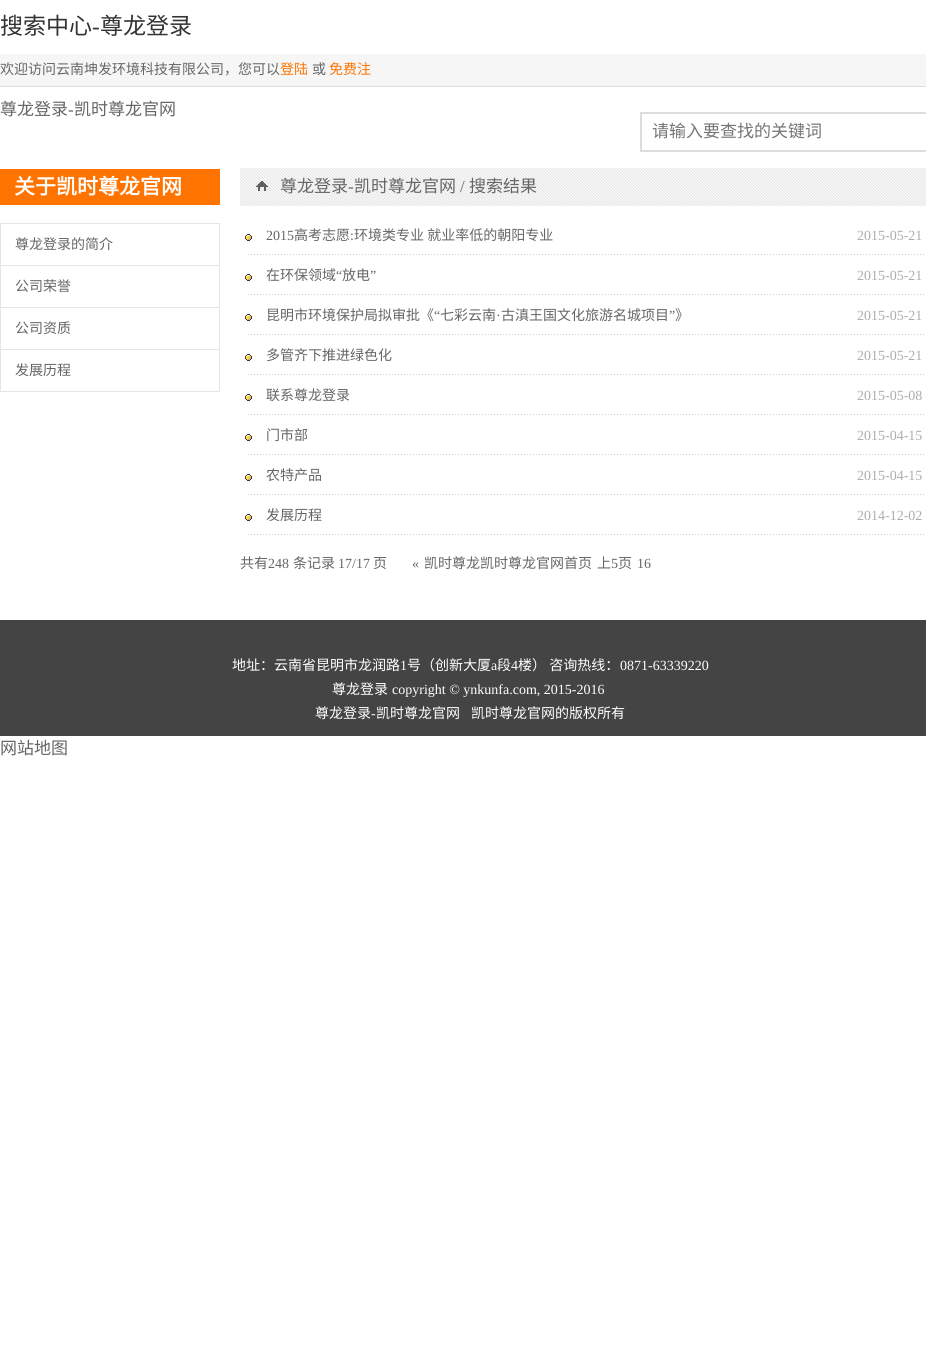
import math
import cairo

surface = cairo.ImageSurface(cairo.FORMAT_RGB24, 926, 1360)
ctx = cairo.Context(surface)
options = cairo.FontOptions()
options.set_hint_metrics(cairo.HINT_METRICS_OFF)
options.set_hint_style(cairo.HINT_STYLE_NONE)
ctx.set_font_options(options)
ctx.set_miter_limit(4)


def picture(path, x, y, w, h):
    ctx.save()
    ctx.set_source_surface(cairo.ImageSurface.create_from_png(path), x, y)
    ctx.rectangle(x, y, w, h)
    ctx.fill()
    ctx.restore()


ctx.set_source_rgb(1, 1, 1)
ctx.paint()
ctx.select_font_face("Noto Sans CJK SC")
ctx.set_font_size(23)
ctx.set_source_rgb(0.2, 0.2, 0.2)
ctx.move_to(0, 34)
ctx.show_text("搜索中心")
ctx.select_font_face("Liberation Serif")
ctx.move_to(92, 34)
ctx.show_text("-")
ctx.select_font_face("Noto Sans CJK SC")
ctx.move_to(100, 34)
ctx.show_text("尊龙登录")
ctx.set_source_rgb(0.961, 0.961, 0.961)
ctx.rectangle(0, 54, 926, 32)
ctx.fill()
ctx.set_source_rgb(0.871, 0.871, 0.871)
ctx.rectangle(0, 86, 926, 1)
ctx.fill()
ctx.set_font_size(14)
ctx.set_source_rgb(0.4, 0.4, 0.4)
ctx.move_to(0, 74)
ctx.show_text("欢迎访问云南坤发环境科技有限公司，您可以")
ctx.set_source_rgb(1, 0.451, 0)
ctx.move_to(280, 74)
ctx.show_text("登陆")
ctx.set_source_rgb(0.4, 0.4, 0.4)
ctx.move_to(312, 74)
ctx.show_text("或")
ctx.set_source_rgb(1, 0.451, 0)
ctx.move_to(329, 74)
ctx.show_text("免费注")
ctx.set_font_size(17)
ctx.set_source_rgb(0.4, 0.4, 0.4)
ctx.move_to(0, 115)
ctx.show_text("尊龙登录")
ctx.select_font_face("Liberation Serif")
ctx.move_to(68, 115)
ctx.show_text("-")
ctx.select_font_face("Noto Sans CJK SC")
ctx.move_to(74, 115)
ctx.show_text("凯时尊龙官网")
ctx.rectangle(641, 113, 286, 38)
ctx.set_source_rgb(0.867, 0.867, 0.867)
ctx.stroke()
ctx.set_source_rgb(0.459, 0.459, 0.459)
ctx.move_to(652, 137)
ctx.show_text("请输入要查找的关键词")
ctx.set_source_rgb(1, 0.451, 0)
ctx.rectangle(0, 169, 220, 36)
ctx.fill()
ctx.select_font_face("Noto Sans CJK SC", cairo.FONT_SLANT_NORMAL, cairo.FONT_WEIGHT_BOLD)
ctx.set_font_size(21)
ctx.set_source_rgb(1, 1, 1)
ctx.move_to(14, 194)
ctx.show_text("关于凯时尊龙官网")
ctx.rectangle(0.5, 223.5, 219, 42)
ctx.set_source_rgb(0.898, 0.898, 0.898)
ctx.set_line_width(1)
ctx.stroke()
ctx.select_font_face("Noto Sans CJK SC")
ctx.set_font_size(14)
ctx.set_source_rgb(0.4, 0.4, 0.4)
ctx.move_to(15, 249)
ctx.show_text("尊龙登录的简介")
ctx.rectangle(0.5, 265.5, 219, 42)
ctx.set_source_rgb(0.898, 0.898, 0.898)
ctx.stroke()
ctx.set_source_rgb(0.4, 0.4, 0.4)
ctx.move_to(15, 291)
ctx.show_text("公司荣誉")
ctx.rectangle(0.5, 307.5, 219, 42)
ctx.set_source_rgb(0.898, 0.898, 0.898)
ctx.stroke()
ctx.set_source_rgb(0.4, 0.4, 0.4)
ctx.move_to(15, 333)
ctx.show_text("公司资质")
ctx.rectangle(0.5, 349.5, 219, 42)
ctx.set_source_rgb(0.898, 0.898, 0.898)
ctx.stroke()
ctx.set_source_rgb(0.4, 0.4, 0.4)
ctx.move_to(15, 375)
ctx.show_text("发展历程")
picture("img1.png", 240, 168, 686, 38)
ctx.set_font_size(17)
ctx.move_to(280, 192)
ctx.show_text("尊龙登录")
ctx.select_font_face("Liberation Serif")
ctx.move_to(348, 192)
ctx.show_text("-")
ctx.select_font_face("Noto Sans CJK SC")
ctx.move_to(354, 192)
ctx.show_text("凯时尊龙官网")
ctx.select_font_face("Liberation Serif")
ctx.move_to(460, 192)
ctx.show_text("/")
ctx.select_font_face("Noto Sans CJK SC")
ctx.move_to(469, 192)
ctx.show_text("搜索结果")
picture("img2.png", 245, 234, 679, 21)
ctx.select_font_face("Liberation Serif")
ctx.set_font_size(14)
ctx.move_to(266, 240)
ctx.show_text("2015")
ctx.select_font_face("Noto Sans CJK SC")
ctx.move_to(294, 240)
ctx.show_text("高考志愿")
ctx.select_font_face("Liberation Serif")
ctx.move_to(350, 240)
ctx.show_text(":")
ctx.select_font_face("Noto Sans CJK SC")
ctx.move_to(354, 240)
ctx.show_text("环境类专业 就业率低的朝阳专业")
ctx.select_font_face("Liberation Serif")
ctx.set_source_rgb(0.675, 0.675, 0.675)
ctx.move_to(857, 240)
ctx.show_text("2015-05-21")
picture("img2.png", 245, 274, 679, 21)
ctx.select_font_face("Noto Sans CJK SC")
ctx.set_source_rgb(0.4, 0.4, 0.4)
ctx.move_to(266, 280)
ctx.show_text("在环保领域")
ctx.select_font_face("Liberation Serif")
ctx.move_to(336, 280)
ctx.show_text("“")
ctx.select_font_face("Noto Sans CJK SC")
ctx.move_to(342, 280)
ctx.show_text("放电")
ctx.select_font_face("Liberation Serif")
ctx.move_to(370, 280)
ctx.show_text("”")
ctx.set_source_rgb(0.675, 0.675, 0.675)
ctx.move_to(857, 280)
ctx.show_text("2015-05-21")
picture("img2.png", 245, 314, 679, 21)
ctx.select_font_face("Noto Sans CJK SC")
ctx.set_source_rgb(0.4, 0.4, 0.4)
ctx.move_to(266, 320)
ctx.show_text("昆明市环境保护局拟审批《")
ctx.select_font_face("Liberation Serif")
ctx.move_to(434, 320)
ctx.show_text("“")
ctx.select_font_face("Noto Sans CJK SC")
ctx.move_to(440, 320)
ctx.show_text("七彩云南")
ctx.move_to(501, 320)
ctx.show_text("古滇王国文化旅游名城项目")
ctx.select_font_face("Liberation Serif")
ctx.move_to(669, 320)
ctx.show_text("”")
ctx.select_font_face("Noto Sans CJK SC")
ctx.move_to(675, 320)
ctx.show_text("》")
ctx.select_font_face("Liberation Serif")
ctx.move_to(496, 320)
ctx.show_text("·")
ctx.set_source_rgb(0.675, 0.675, 0.675)
ctx.move_to(857, 320)
ctx.show_text("2015-05-21")
picture("img2.png", 245, 354, 679, 21)
ctx.select_font_face("Noto Sans CJK SC")
ctx.set_source_rgb(0.4, 0.4, 0.4)
ctx.move_to(266, 360)
ctx.show_text("多管齐下推进绿色化")
ctx.select_font_face("Liberation Serif")
ctx.set_source_rgb(0.675, 0.675, 0.675)
ctx.move_to(857, 360)
ctx.show_text("2015-05-21")
picture("img2.png", 245, 394, 679, 21)
ctx.select_font_face("Noto Sans CJK SC")
ctx.set_source_rgb(0.4, 0.4, 0.4)
ctx.move_to(266, 400)
ctx.show_text("联系尊龙登录")
ctx.select_font_face("Liberation Serif")
ctx.set_source_rgb(0.675, 0.675, 0.675)
ctx.move_to(857, 400)
ctx.show_text("2015-05-08")
picture("img2.png", 245, 434, 679, 21)
ctx.select_font_face("Noto Sans CJK SC")
ctx.set_source_rgb(0.4, 0.4, 0.4)
ctx.move_to(266, 440)
ctx.show_text("门市部")
ctx.select_font_face("Liberation Serif")
ctx.set_source_rgb(0.675, 0.675, 0.675)
ctx.move_to(857, 440)
ctx.show_text("2015-04-15")
picture("img2.png", 245, 474, 679, 21)
ctx.select_font_face("Noto Sans CJK SC")
ctx.set_source_rgb(0.4, 0.4, 0.4)
ctx.move_to(266, 480)
ctx.show_text("农特产品")
ctx.select_font_face("Liberation Serif")
ctx.set_source_rgb(0.675, 0.675, 0.675)
ctx.move_to(857, 480)
ctx.show_text("2015-04-15")
picture("img2.png", 245, 514, 679, 21)
ctx.select_font_face("Noto Sans CJK SC")
ctx.set_source_rgb(0.4, 0.4, 0.4)
ctx.move_to(266, 520)
ctx.show_text("发展历程")
ctx.select_font_face("Liberation Serif")
ctx.set_source_rgb(0.675, 0.675, 0.675)
ctx.move_to(857, 520)
ctx.show_text("2014-12-02")
ctx.select_font_face("Noto Sans CJK SC")
ctx.set_source_rgb(0.4, 0.4, 0.4)
ctx.move_to(240, 568)
ctx.show_text("共有")
ctx.select_font_face("Liberation Serif")
ctx.move_to(268, 568)
ctx.show_text("248")
ctx.select_font_face("Noto Sans CJK SC")
ctx.move_to(293, 568)
ctx.show_text("条记录")
ctx.select_font_face("Liberation Serif")
ctx.move_to(338, 568)
ctx.show_text("17/17")
ctx.select_font_face("Noto Sans CJK SC")
ctx.move_to(373, 568)
ctx.show_text("页")
ctx.select_font_face("Liberation Serif")
ctx.move_to(412, 568)
ctx.show_text("«")
ctx.select_font_face("Noto Sans CJK SC")
ctx.move_to(424, 568)
ctx.show_text("凯时尊龙凯时尊龙官网首页")
ctx.move_to(597, 568)
ctx.show_text("上")
ctx.select_font_face("Liberation Serif")
ctx.move_to(611, 568)
ctx.show_text("5")
ctx.select_font_face("Noto Sans CJK SC")
ctx.move_to(618, 568)
ctx.show_text("页")
ctx.select_font_face("Liberation Serif")
ctx.move_to(637, 568)
ctx.show_text("16")
ctx.set_source_rgb(0.267, 0.267, 0.267)
ctx.rectangle(0, 620, 926, 116)
ctx.fill()
ctx.select_font_face("Noto Sans CJK SC")
ctx.set_source_rgb(1, 1, 1)
ctx.move_to(232, 670)
ctx.show_text("地址：云南省昆明市龙润路")
ctx.select_font_face("Liberation Serif")
ctx.move_to(400, 670)
ctx.show_text("1")
ctx.select_font_face("Noto Sans CJK SC")
ctx.move_to(407, 670)
ctx.show_text("号（创新大厦")
ctx.select_font_face("Liberation Serif")
ctx.move_to(491, 670)
ctx.show_text("a")
ctx.select_font_face("Noto Sans CJK SC")
ctx.move_to(497, 670)
ctx.show_text("段")
ctx.select_font_face("Liberation Serif")
ctx.move_to(511, 670)
ctx.show_text("4")
ctx.select_font_face("Noto Sans CJK SC")
ctx.move_to(518, 670)
ctx.show_text("楼） 咨询热线：")
ctx.select_font_face("Liberation Serif")
ctx.move_to(620, 670)
ctx.show_text("0871-63339220")
ctx.select_font_face("Noto Sans CJK SC")
ctx.move_to(332, 694)
ctx.show_text("尊龙登录")
ctx.select_font_face("Liberation Serif")
ctx.move_to(392, 694)
ctx.show_text("copyright © ynkunfa.com, 2015-2016")
ctx.select_font_face("Noto Sans CJK SC")
ctx.move_to(315, 718)
ctx.show_text("尊龙登录")
ctx.select_font_face("Liberation Serif")
ctx.move_to(371, 718)
ctx.show_text("-")
ctx.select_font_face("Noto Sans CJK SC")
ctx.move_to(376, 718)
ctx.show_text("凯时尊龙官网")
ctx.move_to(471, 718)
ctx.show_text("凯时尊龙官网的版权所有")
ctx.set_font_size(17)
ctx.set_source_rgb(0.4, 0.4, 0.4)
ctx.move_to(0, 754)
ctx.show_text("网站地图")
surface.write_to_png("page.png")
